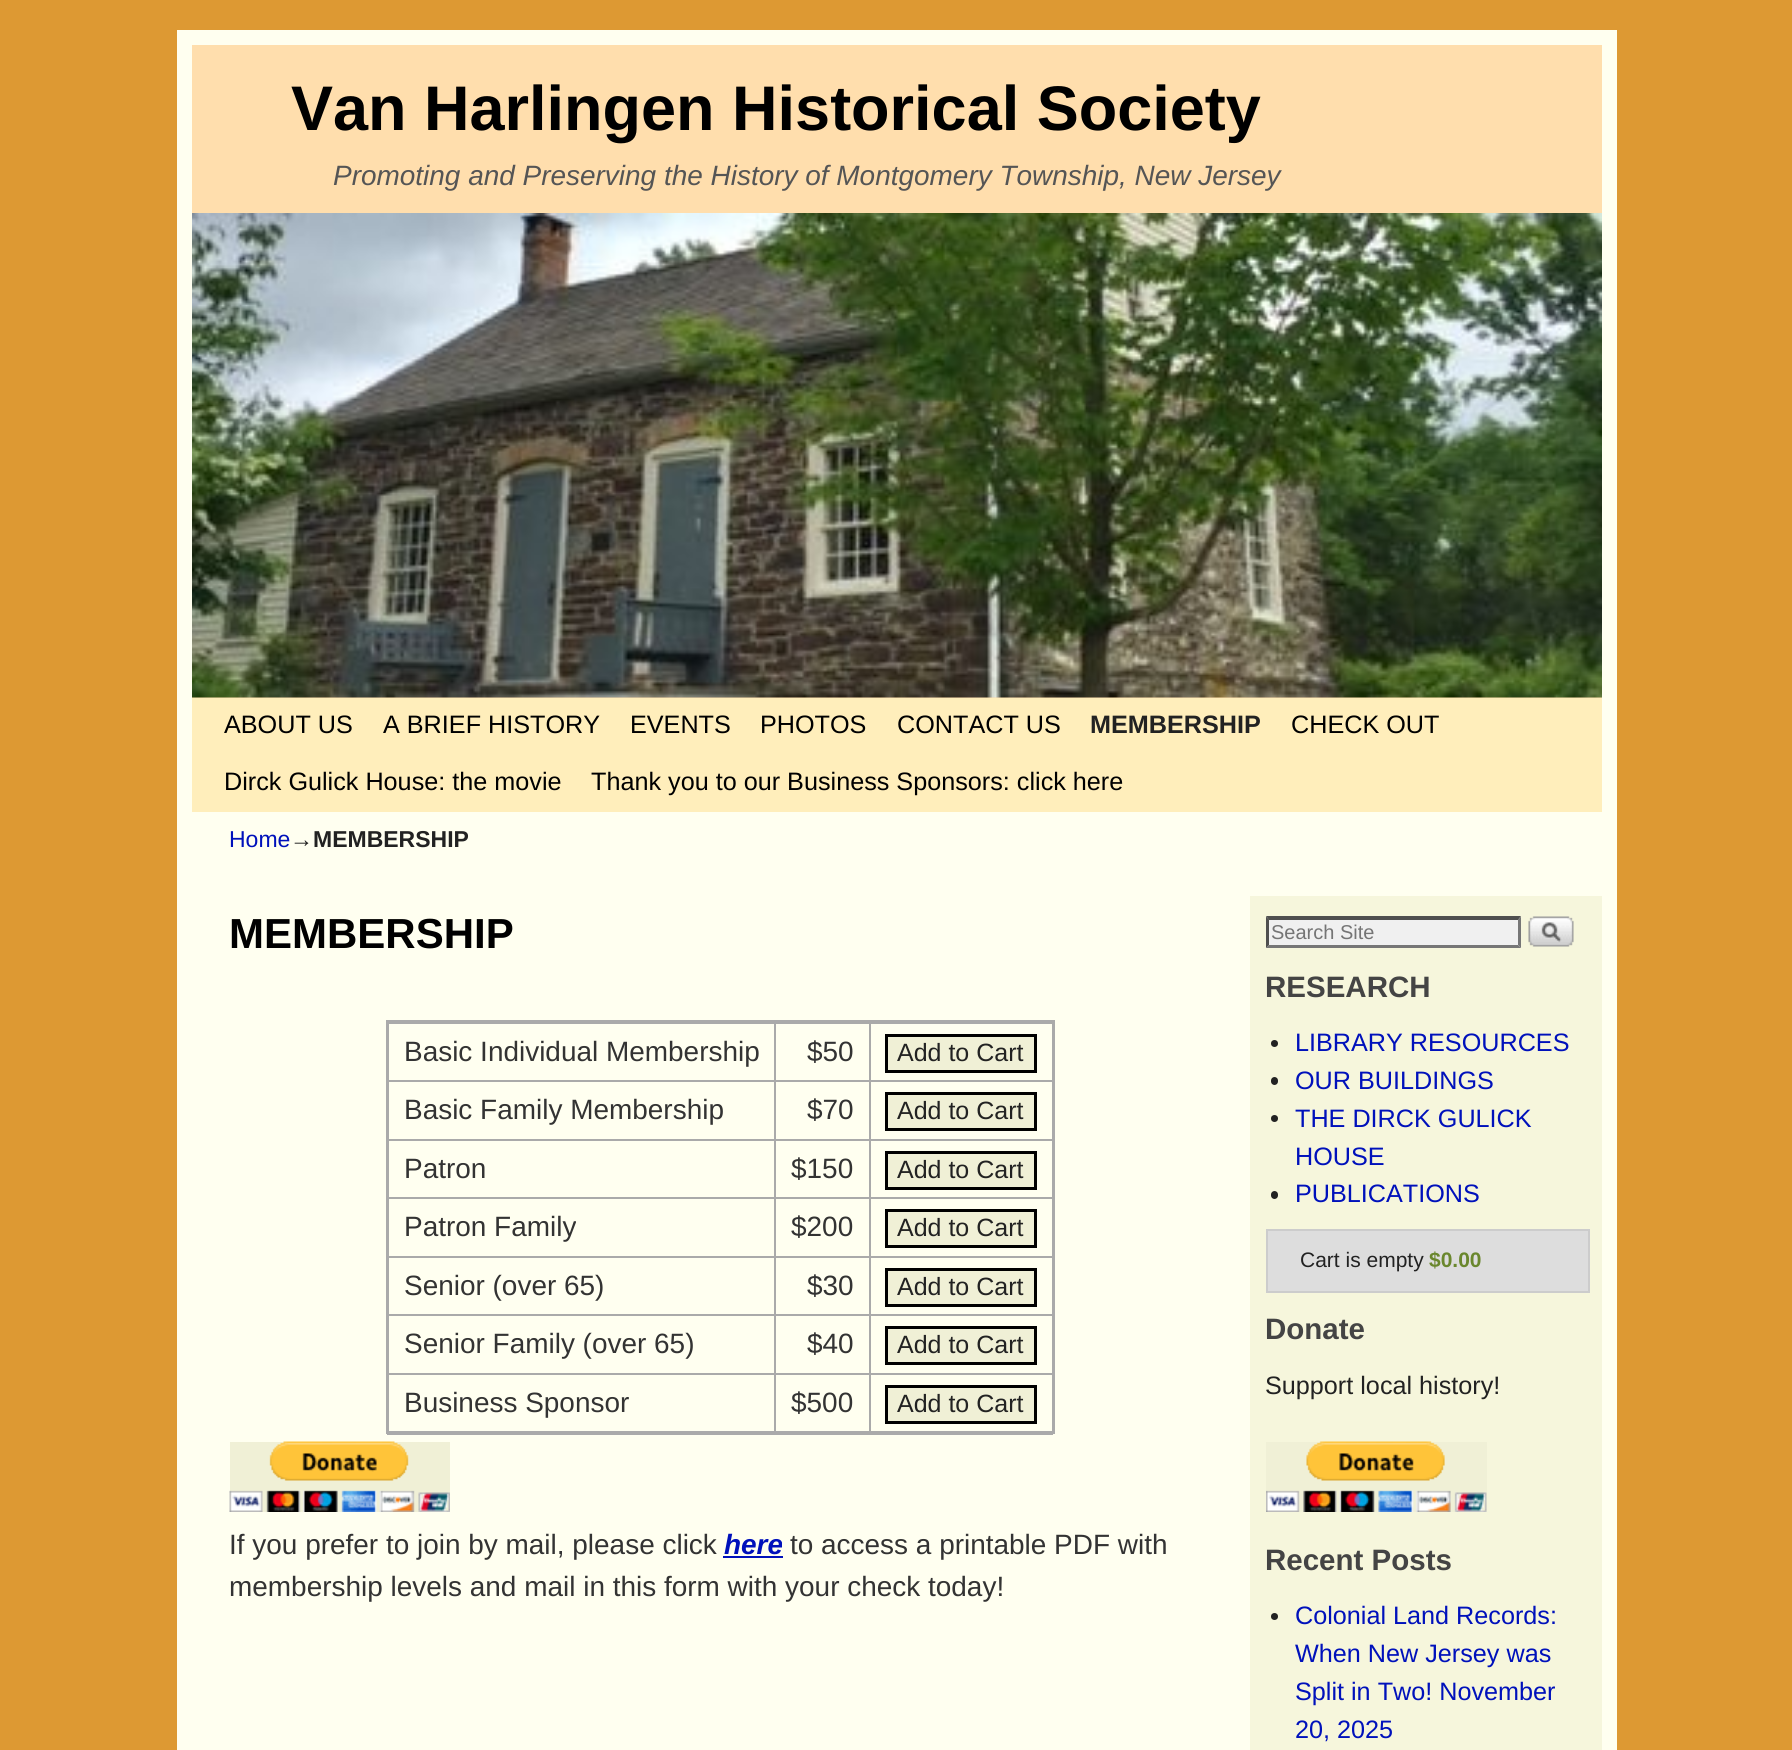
import math
import cairo

surface = cairo.ImageSurface(cairo.FORMAT_RGB24, 1792, 1750)
ctx = cairo.Context(surface)
options = cairo.FontOptions()
options.set_hint_metrics(cairo.HINT_METRICS_OFF)
options.set_hint_style(cairo.HINT_STYLE_NONE)
ctx.set_font_options(options)
ctx.set_miter_limit(4)


def round_rect(x, y, w, h, r):
    ctx.new_sub_path()
    for i, (u, v) in enumerate([(x + w - r, y + h - r), (x + r, y + h - r), (x + r, y + r), (x + w - r, y + r)]):
        ctx.arc(u, v, r, i * math.pi / 2, (i + 1) * math.pi / 2)
    ctx.close_path()


def picture(path, x, y, w, h):
    ctx.save()
    ctx.set_source_surface(cairo.ImageSurface.create_from_png(path), x, y)
    ctx.rectangle(x, y, w, h)
    ctx.fill()
    ctx.restore()


ctx.set_source_rgb(0.867, 0.6, 0.2)
ctx.paint()
ctx.set_source_rgb(1, 1, 0.941)
ctx.rectangle(177, 30, 1440, 1720)
ctx.fill()
ctx.set_source_rgb(1, 0.871, 0.678)
ctx.rectangle(192, 45, 1410, 653)
ctx.fill()
ctx.select_font_face("Liberation Sans", cairo.FONT_SLANT_NORMAL, cairo.FONT_WEIGHT_BOLD)
ctx.set_font_size(63)
ctx.set_source_rgb(0, 0, 0)
ctx.move_to(291, 130)
ctx.show_text("Van Harlingen Historical Society")
ctx.select_font_face("Liberation Sans", cairo.FONT_SLANT_ITALIC)
ctx.set_font_size(27.95)
ctx.set_source_rgb(0.333, 0.333, 0.333)
ctx.move_to(333, 185)
ctx.show_text("Promoting and Preserving the History of Montgomery Township, New Jersey")
picture("img1.png", 192, 213, 1410, 485)
ctx.set_source_rgb(1, 0.933, 0.733)
ctx.rectangle(192, 698, 1410, 114)
ctx.fill()
ctx.select_font_face("Liberation Sans")
ctx.set_font_size(25.2)
ctx.set_source_rgb(0, 0, 0)
ctx.move_to(224, 733)
ctx.show_text("ABOUT US")
ctx.move_to(383, 733)
ctx.show_text("A BRIEF HISTORY")
ctx.move_to(630, 733)
ctx.show_text("EVENTS")
ctx.move_to(760, 733)
ctx.show_text("PHOTOS")
ctx.move_to(897, 733)
ctx.show_text("CONTACT US")
ctx.select_font_face("Liberation Sans", cairo.FONT_SLANT_NORMAL, cairo.FONT_WEIGHT_BOLD)
ctx.set_source_rgb(0.133, 0.133, 0.133)
ctx.move_to(1090, 733)
ctx.show_text("MEMBERSHIP")
ctx.select_font_face("Liberation Sans")
ctx.set_source_rgb(0, 0, 0)
ctx.move_to(1291, 733)
ctx.show_text("CHECK OUT")
ctx.move_to(224, 790)
ctx.show_text("Dirck Gulick House: the movie")
ctx.move_to(591, 790)
ctx.show_text("Thank you to our Business Sponsors: click here")
ctx.set_font_size(23)
ctx.set_source_rgb(0, 0.067, 0.733)
ctx.move_to(229, 847)
ctx.show_text("Home")
ctx.set_source_rgb(0.133, 0.133, 0.133)
ctx.move_to(290, 847)
ctx.show_text("→")
ctx.select_font_face("Liberation Sans", cairo.FONT_SLANT_NORMAL, cairo.FONT_WEIGHT_BOLD)
ctx.move_to(313, 847)
ctx.show_text("MEMBERSHIP")
ctx.set_font_size(42)
ctx.set_source_rgb(0, 0, 0)
ctx.move_to(229, 948)
ctx.show_text("MEMBERSHIP")
ctx.set_source_rgb(0.667, 0.667, 0.667)
ctx.rectangle(869, 1023, 184, 1)
ctx.fill()
ctx.rectangle(869, 1080, 184, 2)
ctx.fill()
ctx.rectangle(869, 1139, 184, 2)
ctx.fill()
ctx.rectangle(869, 1197, 184, 2)
ctx.fill()
ctx.rectangle(869, 1256, 184, 2)
ctx.fill()
ctx.rectangle(869, 1314, 184, 2)
ctx.fill()
ctx.rectangle(869, 1373, 184, 2)
ctx.fill()
ctx.rectangle(869, 1373, 2, 61)
ctx.fill()
ctx.rectangle(774, 1373, 96, 2)
ctx.fill()
ctx.rectangle(869, 1314, 2, 60)
ctx.fill()
ctx.rectangle(774, 1314, 96, 2)
ctx.fill()
ctx.rectangle(869, 1256, 2, 60)
ctx.fill()
ctx.rectangle(774, 1256, 96, 2)
ctx.fill()
ctx.rectangle(869, 1197, 2, 60)
ctx.fill()
ctx.rectangle(774, 1197, 96, 2)
ctx.fill()
ctx.rectangle(869, 1139, 2, 60)
ctx.fill()
ctx.rectangle(774, 1139, 96, 2)
ctx.fill()
ctx.rectangle(869, 1080, 2, 60)
ctx.fill()
ctx.rectangle(774, 1080, 96, 2)
ctx.fill()
ctx.rectangle(869, 1022, 2, 60)
ctx.fill()
ctx.rectangle(774, 1023, 96, 1)
ctx.fill()
ctx.rectangle(774, 1373, 2, 61)
ctx.fill()
ctx.rectangle(387, 1373, 389, 2)
ctx.fill()
ctx.rectangle(774, 1314, 2, 60)
ctx.fill()
ctx.rectangle(387, 1314, 389, 2)
ctx.fill()
ctx.rectangle(774, 1256, 2, 60)
ctx.fill()
ctx.rectangle(387, 1256, 389, 2)
ctx.fill()
ctx.rectangle(774, 1197, 2, 60)
ctx.fill()
ctx.rectangle(387, 1197, 389, 2)
ctx.fill()
ctx.rectangle(774, 1139, 2, 60)
ctx.fill()
ctx.rectangle(387, 1139, 389, 2)
ctx.fill()
ctx.rectangle(774, 1080, 2, 60)
ctx.fill()
ctx.rectangle(387, 1080, 389, 2)
ctx.fill()
ctx.rectangle(774, 1022, 2, 60)
ctx.fill()
ctx.rectangle(386, 1020, 669, 3)
ctx.fill()
ctx.rectangle(1052, 1020, 3, 414)
ctx.fill()
ctx.rectangle(386, 1431, 669, 3)
ctx.fill()
ctx.rectangle(387, 1023, 389, 1)
ctx.fill()
ctx.rectangle(386, 1020, 3, 414)
ctx.fill()
ctx.select_font_face("Liberation Sans")
ctx.set_font_size(27.95)
ctx.set_source_rgb(0.2, 0.2, 0.2)
ctx.move_to(404, 1061)
ctx.show_text("Basic Individual Membership")
ctx.move_to(807, 1061)
ctx.show_text("$50")
ctx.set_source_rgb(0.941, 0.941, 0.839)
ctx.rectangle(886.5, 1035.5, 149, 36)
ctx.fill_preserve()
ctx.set_source_rgb(0, 0, 0)
ctx.set_line_width(3)
ctx.stroke()
ctx.set_font_size(25)
ctx.set_source_rgb(0.133, 0.133, 0.133)
ctx.move_to(897, 1061)
ctx.show_text("Add to Cart")
ctx.set_font_size(27.95)
ctx.set_source_rgb(0.2, 0.2, 0.2)
ctx.move_to(404, 1119)
ctx.show_text("Basic Family Membership")
ctx.move_to(807, 1119)
ctx.show_text("$70")
ctx.set_source_rgb(0.941, 0.941, 0.839)
ctx.rectangle(886.5, 1093.5, 149, 36)
ctx.fill_preserve()
ctx.set_source_rgb(0, 0, 0)
ctx.stroke()
ctx.set_font_size(25)
ctx.set_source_rgb(0.133, 0.133, 0.133)
ctx.move_to(897, 1119)
ctx.show_text("Add to Cart")
ctx.set_font_size(27.95)
ctx.set_source_rgb(0.2, 0.2, 0.2)
ctx.move_to(404, 1178)
ctx.show_text("Patron")
ctx.move_to(791, 1178)
ctx.show_text("$150")
ctx.set_source_rgb(0.941, 0.941, 0.839)
ctx.rectangle(886.5, 1152.5, 149, 36)
ctx.fill_preserve()
ctx.set_source_rgb(0, 0, 0)
ctx.stroke()
ctx.set_font_size(25)
ctx.set_source_rgb(0.133, 0.133, 0.133)
ctx.move_to(897, 1178)
ctx.show_text("Add to Cart")
ctx.set_font_size(27.95)
ctx.set_source_rgb(0.2, 0.2, 0.2)
ctx.move_to(404, 1236)
ctx.show_text("Patron Family")
ctx.move_to(791, 1236)
ctx.show_text("$200")
ctx.set_source_rgb(0.941, 0.941, 0.839)
ctx.rectangle(886.5, 1210.5, 149, 36)
ctx.fill_preserve()
ctx.set_source_rgb(0, 0, 0)
ctx.stroke()
ctx.set_font_size(25)
ctx.set_source_rgb(0.133, 0.133, 0.133)
ctx.move_to(897, 1236)
ctx.show_text("Add to Cart")
ctx.set_font_size(27.95)
ctx.set_source_rgb(0.2, 0.2, 0.2)
ctx.move_to(404, 1295)
ctx.show_text("Senior (over 65)")
ctx.move_to(807, 1295)
ctx.show_text("$30")
ctx.set_source_rgb(0.941, 0.941, 0.839)
ctx.rectangle(886.5, 1269.5, 149, 36)
ctx.fill_preserve()
ctx.set_source_rgb(0, 0, 0)
ctx.stroke()
ctx.set_font_size(25)
ctx.set_source_rgb(0.133, 0.133, 0.133)
ctx.move_to(897, 1295)
ctx.show_text("Add to Cart")
ctx.set_font_size(27.95)
ctx.set_source_rgb(0.2, 0.2, 0.2)
ctx.move_to(404, 1353)
ctx.show_text("Senior Family (over 65)")
ctx.move_to(807, 1353)
ctx.show_text("$40")
ctx.set_source_rgb(0.941, 0.941, 0.839)
ctx.rectangle(886.5, 1327.5, 149, 36)
ctx.fill_preserve()
ctx.set_source_rgb(0, 0, 0)
ctx.stroke()
ctx.set_font_size(25)
ctx.set_source_rgb(0.133, 0.133, 0.133)
ctx.move_to(897, 1353)
ctx.show_text("Add to Cart")
ctx.set_font_size(27.95)
ctx.set_source_rgb(0.2, 0.2, 0.2)
ctx.move_to(404, 1412)
ctx.show_text("Business Sponsor")
ctx.move_to(791, 1412)
ctx.show_text("$500")
ctx.set_source_rgb(0.667, 0.667, 0.667)
ctx.rectangle(387, 1434, 666, 1)
ctx.fill()
ctx.set_source_rgb(0.941, 0.941, 0.839)
ctx.rectangle(886.5, 1386.5, 149, 36)
ctx.fill_preserve()
ctx.set_source_rgb(0, 0, 0)
ctx.stroke()
ctx.set_font_size(25)
ctx.set_source_rgb(0.133, 0.133, 0.133)
ctx.move_to(897, 1412)
ctx.show_text("Add to Cart")
ctx.set_source_rgb(0.941, 0.941, 0.839)
ctx.rectangle(230, 1442, 220, 70)
ctx.fill()
picture("img2.png", 229, 1441, 221, 71)
ctx.set_font_size(27.95)
ctx.set_source_rgb(0.2, 0.2, 0.2)
ctx.move_to(229, 1554)
ctx.show_text("If you prefer to join by mail, please click")
ctx.select_font_face("Liberation Sans", cairo.FONT_SLANT_ITALIC, cairo.FONT_WEIGHT_BOLD)
ctx.set_source_rgb(0, 0.067, 0.733)
ctx.move_to(724, 1554)
ctx.show_text("here")
ctx.rectangle(723, 1556, 60, 2)
ctx.fill()
ctx.select_font_face("Liberation Sans")
ctx.set_source_rgb(0.2, 0.2, 0.2)
ctx.move_to(790, 1554)
ctx.show_text("to access a printable PDF with")
ctx.move_to(229, 1596)
ctx.show_text("membership levels and mail in this form with your check today!")
ctx.set_source_rgb(0.961, 0.961, 0.863)
ctx.rectangle(1250, 896, 352, 854)
ctx.fill()
ctx.set_source_rgb(0.941, 0.941, 0.941)
ctx.rectangle(1266, 917, 255, 31)
ctx.fill()
ctx.set_source_rgb(0.31, 0.31, 0.31)
ctx.new_path()
ctx.move_to(1266, 916)
ctx.line_to(1521, 916)
ctx.line_to(1518, 920)
ctx.line_to(1269, 920)
ctx.close_path()
ctx.fill()
ctx.set_source_rgb(0.463, 0.463, 0.463)
ctx.new_path()
ctx.move_to(1521, 916.5)
ctx.line_to(1521, 948)
ctx.line_to(1518, 945)
ctx.line_to(1518, 919.5)
ctx.close_path()
ctx.fill()
ctx.new_path()
ctx.move_to(1521, 948)
ctx.line_to(1266, 948)
ctx.line_to(1269, 945)
ctx.line_to(1518, 945)
ctx.close_path()
ctx.fill()
ctx.set_source_rgb(0.31, 0.31, 0.31)
ctx.new_path()
ctx.move_to(1266, 948)
ctx.line_to(1266, 916.5)
ctx.line_to(1269, 919.5)
ctx.line_to(1269, 945)
ctx.close_path()
ctx.fill()
ctx.set_font_size(20)
ctx.set_source_rgb(0.459, 0.459, 0.459)
ctx.move_to(1271, 939)
ctx.show_text("Search Site")
picture("img3.png", 1528, 916, 46, 31)
ctx.select_font_face("Liberation Sans", cairo.FONT_SLANT_NORMAL, cairo.FONT_WEIGHT_BOLD)
ctx.set_font_size(29.5)
ctx.set_source_rgb(0.267, 0.267, 0.267)
ctx.move_to(1265, 997)
ctx.show_text("RESEARCH")
ctx.set_source_rgb(0.133, 0.133, 0.133)
ctx.new_path()
ctx.arc(1274.5, 1043.5, 3.5, 0, 2 * math.pi)
ctx.fill()
ctx.select_font_face("Liberation Sans")
ctx.set_font_size(25.2)
ctx.set_source_rgb(0, 0.067, 0.733)
ctx.move_to(1295, 1051)
ctx.show_text("LIBRARY RESOURCES")
ctx.set_source_rgb(0.133, 0.133, 0.133)
round_rect(1271, 1077, 7, 8, 3.5)
ctx.fill()
ctx.set_source_rgb(0, 0.067, 0.733)
ctx.move_to(1295, 1089)
ctx.show_text("OUR BUILDINGS")
ctx.set_source_rgb(0.133, 0.133, 0.133)
ctx.new_path()
ctx.arc(1274.5, 1118.5, 3.5, 0, 2 * math.pi)
ctx.fill()
ctx.set_source_rgb(0, 0.067, 0.733)
ctx.move_to(1295, 1127)
ctx.show_text("THE DIRCK GULICK")
ctx.move_to(1295, 1165)
ctx.show_text("HOUSE")
ctx.set_source_rgb(0.133, 0.133, 0.133)
round_rect(1271, 1191, 7, 8, 3.5)
ctx.fill()
ctx.set_source_rgb(0, 0.067, 0.733)
ctx.move_to(1295, 1202)
ctx.show_text("PUBLICATIONS")
ctx.set_source_rgb(0.867, 0.867, 0.867)
ctx.rectangle(1267, 1230, 322, 62)
ctx.fill_preserve()
ctx.set_source_rgb(0.8, 0.8, 0.8)
ctx.set_line_width(2)
ctx.stroke()
ctx.set_font_size(21)
ctx.set_source_rgb(0.133, 0.133, 0.133)
ctx.move_to(1300, 1267)
ctx.show_text("Cart is empty")
ctx.select_font_face("Liberation Sans", cairo.FONT_SLANT_NORMAL, cairo.FONT_WEIGHT_BOLD)
ctx.set_source_rgb(0.416, 0.529, 0.176)
ctx.move_to(1429, 1267)
ctx.show_text("$0.00")
ctx.set_font_size(29.5)
ctx.set_source_rgb(0.267, 0.267, 0.267)
ctx.move_to(1265, 1339)
ctx.show_text("Donate")
ctx.select_font_face("Liberation Sans")
ctx.set_font_size(25.2)
ctx.set_source_rgb(0.133, 0.133, 0.133)
ctx.move_to(1265, 1394)
ctx.show_text("Support local history!")
ctx.set_source_rgb(0.941, 0.941, 0.839)
ctx.rectangle(1266, 1442, 221, 70)
ctx.fill()
picture("img4.png", 1266, 1441, 221, 71)
ctx.select_font_face("Liberation Sans", cairo.FONT_SLANT_NORMAL, cairo.FONT_WEIGHT_BOLD)
ctx.set_font_size(29.5)
ctx.set_source_rgb(0.267, 0.267, 0.267)
ctx.move_to(1265, 1570)
ctx.show_text("Recent Posts")
ctx.set_source_rgb(0.133, 0.133, 0.133)
ctx.new_path()
ctx.arc(1274.5, 1616.5, 3.5, 0, 2 * math.pi)
ctx.fill()
ctx.select_font_face("Liberation Sans")
ctx.set_font_size(25.2)
ctx.set_source_rgb(0, 0.067, 0.733)
ctx.move_to(1295, 1624)
ctx.show_text("Colonial Land Records:")
ctx.move_to(1295, 1662)
ctx.show_text("When New Jersey was")
ctx.move_to(1295, 1700)
ctx.show_text("Split in Two! November")
ctx.move_to(1295, 1738)
ctx.show_text("20, 2025")
surface.write_to_png("page.png")
